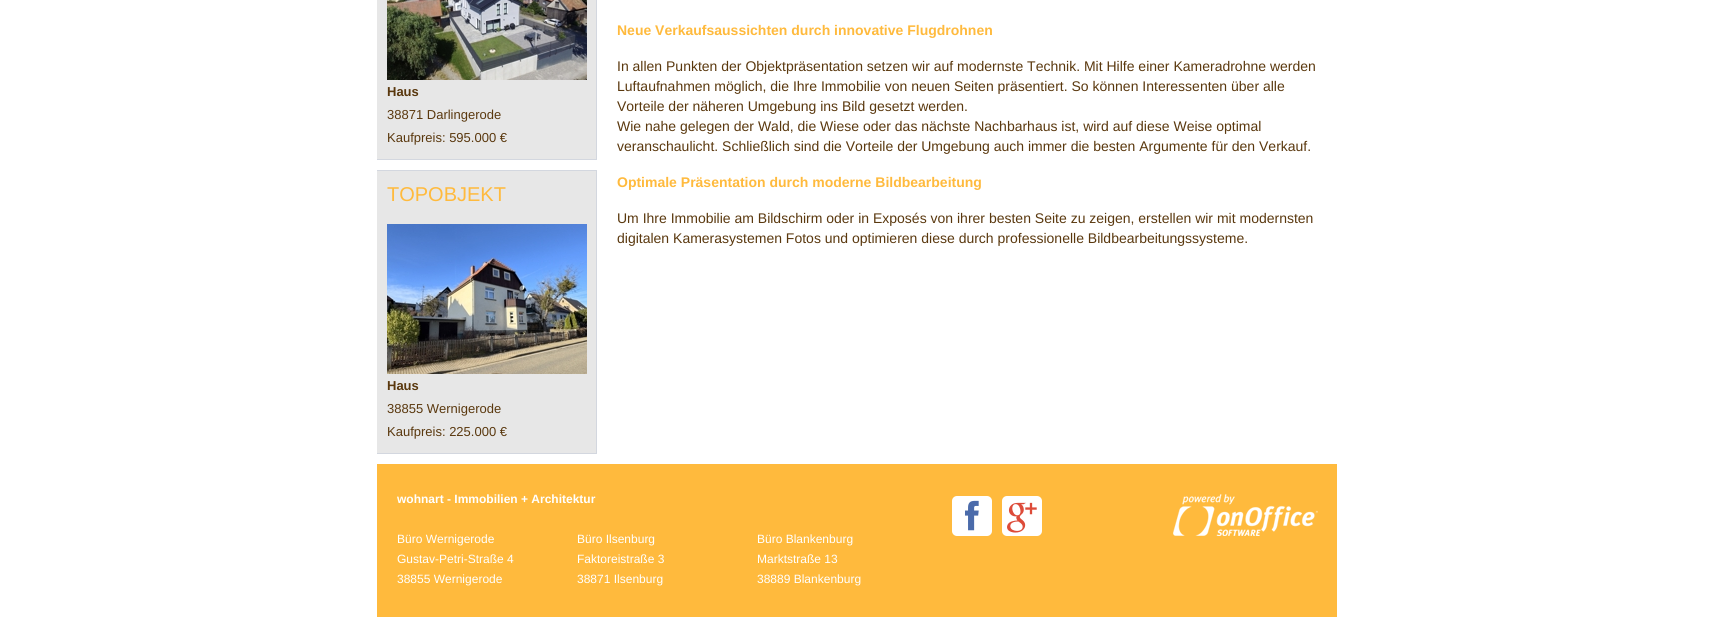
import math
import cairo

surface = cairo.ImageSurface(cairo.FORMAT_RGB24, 1714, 617)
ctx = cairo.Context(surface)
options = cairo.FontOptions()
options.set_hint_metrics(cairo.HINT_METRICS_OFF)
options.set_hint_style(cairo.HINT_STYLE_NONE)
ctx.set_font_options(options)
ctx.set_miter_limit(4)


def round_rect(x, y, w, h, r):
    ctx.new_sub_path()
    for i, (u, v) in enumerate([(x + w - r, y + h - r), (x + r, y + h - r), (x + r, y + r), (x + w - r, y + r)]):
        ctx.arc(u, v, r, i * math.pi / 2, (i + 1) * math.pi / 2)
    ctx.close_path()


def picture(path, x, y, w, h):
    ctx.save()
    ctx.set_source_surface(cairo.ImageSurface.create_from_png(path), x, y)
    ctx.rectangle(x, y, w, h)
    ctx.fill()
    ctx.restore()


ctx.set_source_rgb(1, 1, 1)
ctx.paint()
ctx.set_source_rgb(0.906, 0.906, 0.906)
ctx.rectangle(377, 0, 219, 159)
ctx.fill()
ctx.set_source_rgb(0.827, 0.843, 0.875)
ctx.rectangle(596, 0, 1, 160)
ctx.fill()
ctx.rectangle(377, 159, 220, 1)
ctx.fill()
picture("img1.png", 387, 0, 200, 80)
ctx.select_font_face("Liberation Sans", cairo.FONT_SLANT_NORMAL, cairo.FONT_WEIGHT_BOLD)
ctx.set_font_size(13)
ctx.set_source_rgb(0.353, 0.22, 0.055)
ctx.move_to(387, 96)
ctx.show_text("Haus")
ctx.select_font_face("Liberation Sans")
ctx.move_to(387, 119)
ctx.show_text("38871 Darlingerode")
ctx.move_to(387, 142)
ctx.show_text("Kaufpreis: 595.000 €")
ctx.set_source_rgb(0.906, 0.906, 0.906)
ctx.rectangle(377, 171, 219, 282)
ctx.fill()
ctx.set_source_rgb(0.827, 0.843, 0.875)
ctx.rectangle(377, 170, 220, 1)
ctx.fill()
ctx.rectangle(596, 170, 1, 284)
ctx.fill()
ctx.rectangle(377, 453, 220, 1)
ctx.fill()
ctx.set_font_size(20)
ctx.set_source_rgb(1, 0.729, 0.239)
ctx.move_to(387, 201)
ctx.show_text("TOPOBJEKT")
picture("img2.png", 387, 224, 200, 150)
ctx.select_font_face("Liberation Sans", cairo.FONT_SLANT_NORMAL, cairo.FONT_WEIGHT_BOLD)
ctx.set_font_size(13)
ctx.set_source_rgb(0.353, 0.22, 0.055)
ctx.move_to(387, 390)
ctx.show_text("Haus")
ctx.select_font_face("Liberation Sans")
ctx.move_to(387, 413)
ctx.show_text("38855 Wernigerode")
ctx.move_to(387, 436)
ctx.show_text("Kaufpreis: 225.000 €")
ctx.select_font_face("Liberation Sans", cairo.FONT_SLANT_NORMAL, cairo.FONT_WEIGHT_BOLD)
ctx.set_font_size(14)
ctx.set_source_rgb(1, 0.729, 0.239)
ctx.move_to(617, 35)
ctx.show_text("Neue Verkaufsaussichten durch innovative Flugdrohnen")
ctx.select_font_face("Liberation Sans")
ctx.set_source_rgb(0.353, 0.22, 0.055)
ctx.move_to(617, 71)
ctx.show_text("In allen Punkten der Objektpräsentation setzen wir auf modernste Technik. Mit Hilfe einer Kameradrohne werden")
ctx.move_to(617, 91)
ctx.show_text("Luftaufnahmen möglich, die Ihre Immobilie von neuen Seiten präsentiert. So können Interessenten über alle")
ctx.move_to(617, 111)
ctx.show_text("Vorteile der näheren Umgebung ins Bild gesetzt werden.")
ctx.move_to(617, 131)
ctx.show_text("Wie nahe gelegen der Wald, die Wiese oder das nächste Nachbarhaus ist, wird auf diese Weise optimal")
ctx.move_to(617, 151)
ctx.show_text("veranschaulicht. Schließlich sind die Vorteile der Umgebung auch immer die besten Argumente für den Verkauf.")
ctx.select_font_face("Liberation Sans", cairo.FONT_SLANT_NORMAL, cairo.FONT_WEIGHT_BOLD)
ctx.set_source_rgb(1, 0.729, 0.239)
ctx.move_to(617, 187)
ctx.show_text("Optimale Präsentation durch moderne Bildbearbeitung")
ctx.select_font_face("Liberation Sans")
ctx.set_source_rgb(0.353, 0.22, 0.055)
ctx.move_to(617, 223)
ctx.show_text("Um Ihre Immobilie am Bildschirm oder in Exposés von ihrer besten Seite zu zeigen, erstellen wir mit modernsten")
ctx.move_to(617, 243)
ctx.show_text("digitalen Kamerasystemen Fotos und optimieren diese durch professionelle Bildbearbeitungssysteme.")
ctx.set_source_rgb(1, 0.729, 0.239)
ctx.rectangle(377, 464, 960, 153)
ctx.fill()
ctx.select_font_face("Liberation Sans", cairo.FONT_SLANT_NORMAL, cairo.FONT_WEIGHT_BOLD)
ctx.set_font_size(12)
ctx.set_source_rgb(1, 1, 1)
ctx.move_to(397, 503)
ctx.show_text("wohnart - Immobilien + Architektur")
ctx.select_font_face("Liberation Sans")
ctx.move_to(397, 543)
ctx.show_text("Büro Wernigerode")
ctx.move_to(397, 563)
ctx.show_text("Gustav-Petri-Straße 4")
ctx.move_to(397, 583)
ctx.show_text("38855 Wernigerode")
round_rect(952, 496, 40, 40, 5)
ctx.fill()
picture("img3.png", 965, 500, 14, 31)
round_rect(1002, 496, 40, 40, 5)
ctx.fill()
picture("img4.png", 1007, 502, 30, 31)
picture("img5.png", 1173, 494, 145, 42)
ctx.move_to(577, 543)
ctx.show_text("Büro Ilsenburg")
ctx.move_to(577, 563)
ctx.show_text("Faktoreistraße 3")
ctx.move_to(577, 583)
ctx.show_text("38871 Ilsenburg")
ctx.move_to(757, 543)
ctx.show_text("Büro Blankenburg")
ctx.move_to(757, 563)
ctx.show_text("Marktstraße 13")
ctx.move_to(757, 583)
ctx.show_text("38889 Blankenburg")
surface.write_to_png("page.png")
